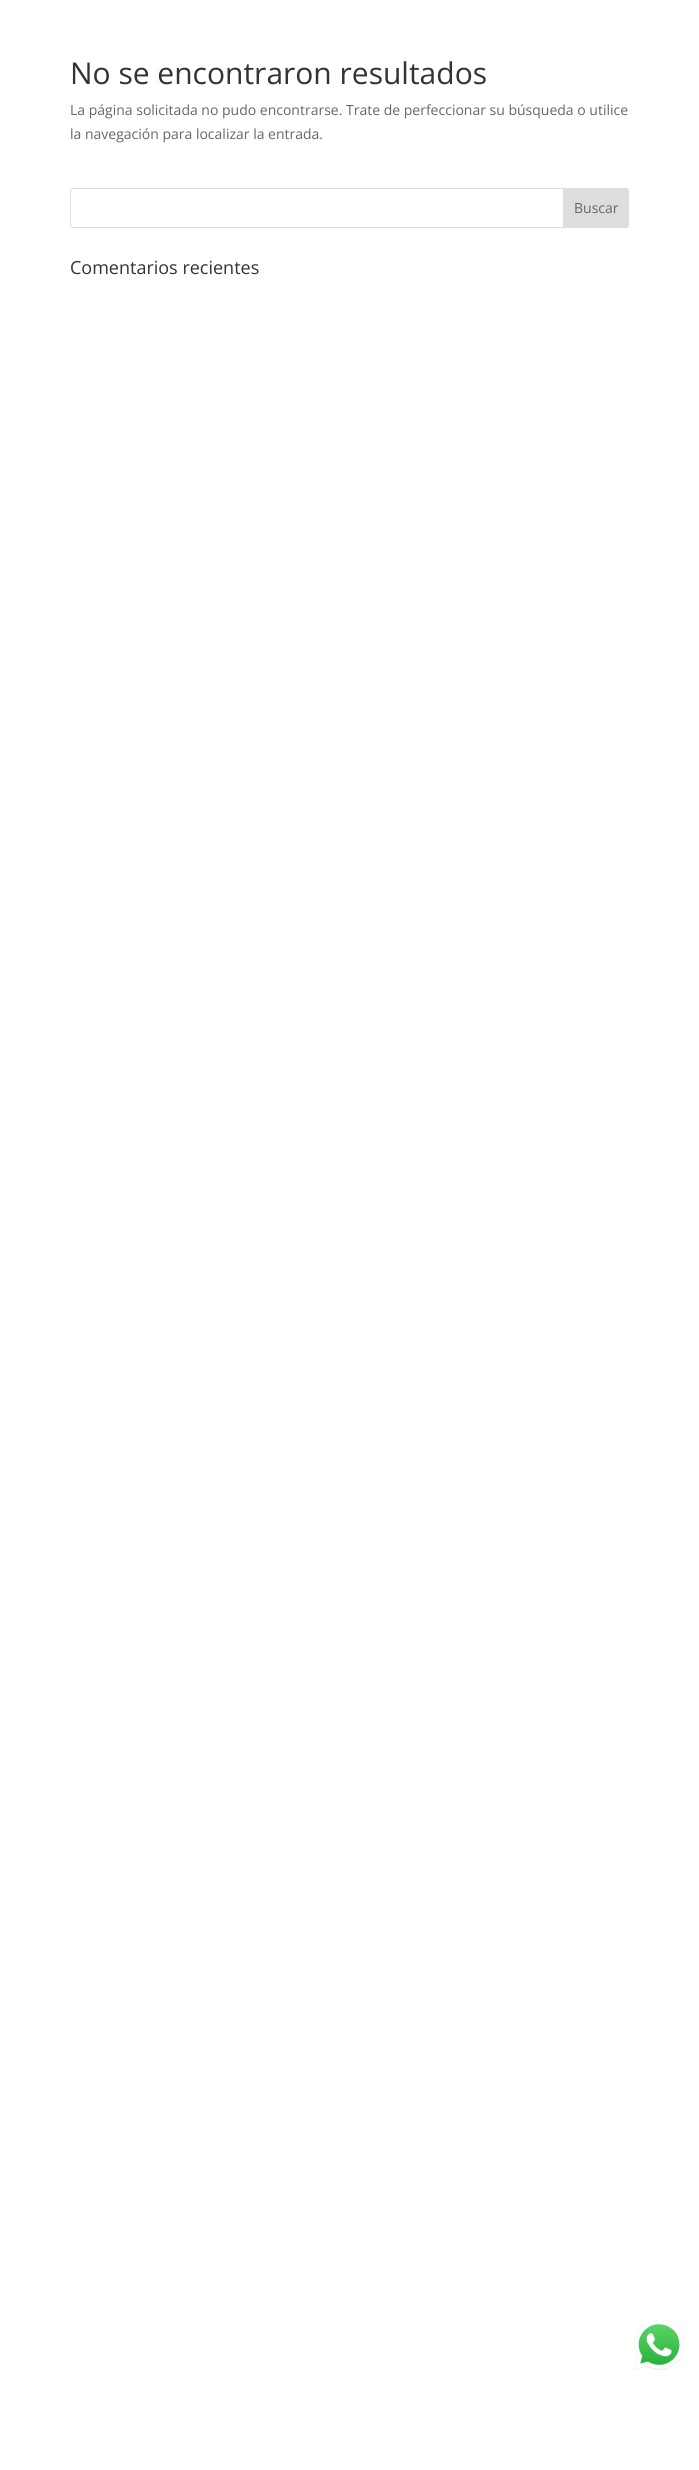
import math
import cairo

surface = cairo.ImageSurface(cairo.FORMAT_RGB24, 699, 2470)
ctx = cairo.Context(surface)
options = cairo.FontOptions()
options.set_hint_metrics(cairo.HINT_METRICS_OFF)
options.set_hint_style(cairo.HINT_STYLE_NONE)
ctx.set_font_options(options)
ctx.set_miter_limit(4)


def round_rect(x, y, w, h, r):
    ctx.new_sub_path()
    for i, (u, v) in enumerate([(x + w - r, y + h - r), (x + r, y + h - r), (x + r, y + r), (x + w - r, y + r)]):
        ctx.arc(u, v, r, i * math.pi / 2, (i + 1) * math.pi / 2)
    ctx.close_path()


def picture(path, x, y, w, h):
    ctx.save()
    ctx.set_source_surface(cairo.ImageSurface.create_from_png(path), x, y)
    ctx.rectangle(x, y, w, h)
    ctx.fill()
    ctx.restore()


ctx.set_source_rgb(1, 1, 1)
ctx.paint()
ctx.select_font_face("Open Sans")
ctx.set_font_size(30)
ctx.set_source_rgb(0.2, 0.2, 0.2)
ctx.move_to(70, 84)
ctx.show_text("No se encontraron resultados")
ctx.set_font_size(14)
ctx.set_source_rgb(0.4, 0.4, 0.4)
ctx.move_to(70, 115)
ctx.show_text("La página solicitada no pudo encontrarse. Trate de perfeccionar su búsqueda o utilice")
ctx.move_to(70, 139)
ctx.show_text("la navegación para localizar la entrada.")
round_rect(70.5, 188.5, 558, 39, 2.5)
ctx.set_source_rgb(0.867, 0.867, 0.867)
ctx.set_line_width(1)
ctx.stroke()
ctx.new_path()
ctx.move_to(563.5, 188.5)
ctx.line_to(626, 188.5)
ctx.curve_to(627.5, 188.5, 628.5, 189.5, 628.5, 191)
ctx.line_to(628.5, 225)
ctx.curve_to(628.5, 226.5, 627.5, 227.5, 626, 227.5)
ctx.line_to(563.5, 227.5)
ctx.close_path()
ctx.fill_preserve()
ctx.stroke()
ctx.set_source_rgb(0.4, 0.4, 0.4)
ctx.move_to(574, 213)
ctx.show_text("Buscar")
ctx.set_font_size(18)
ctx.set_source_rgb(0.2, 0.2, 0.2)
ctx.move_to(70, 274)
ctx.show_text("Comentarios recientes")
picture("img1.png", 634, 2320, 50, 50)
surface.write_to_png("page.png")
